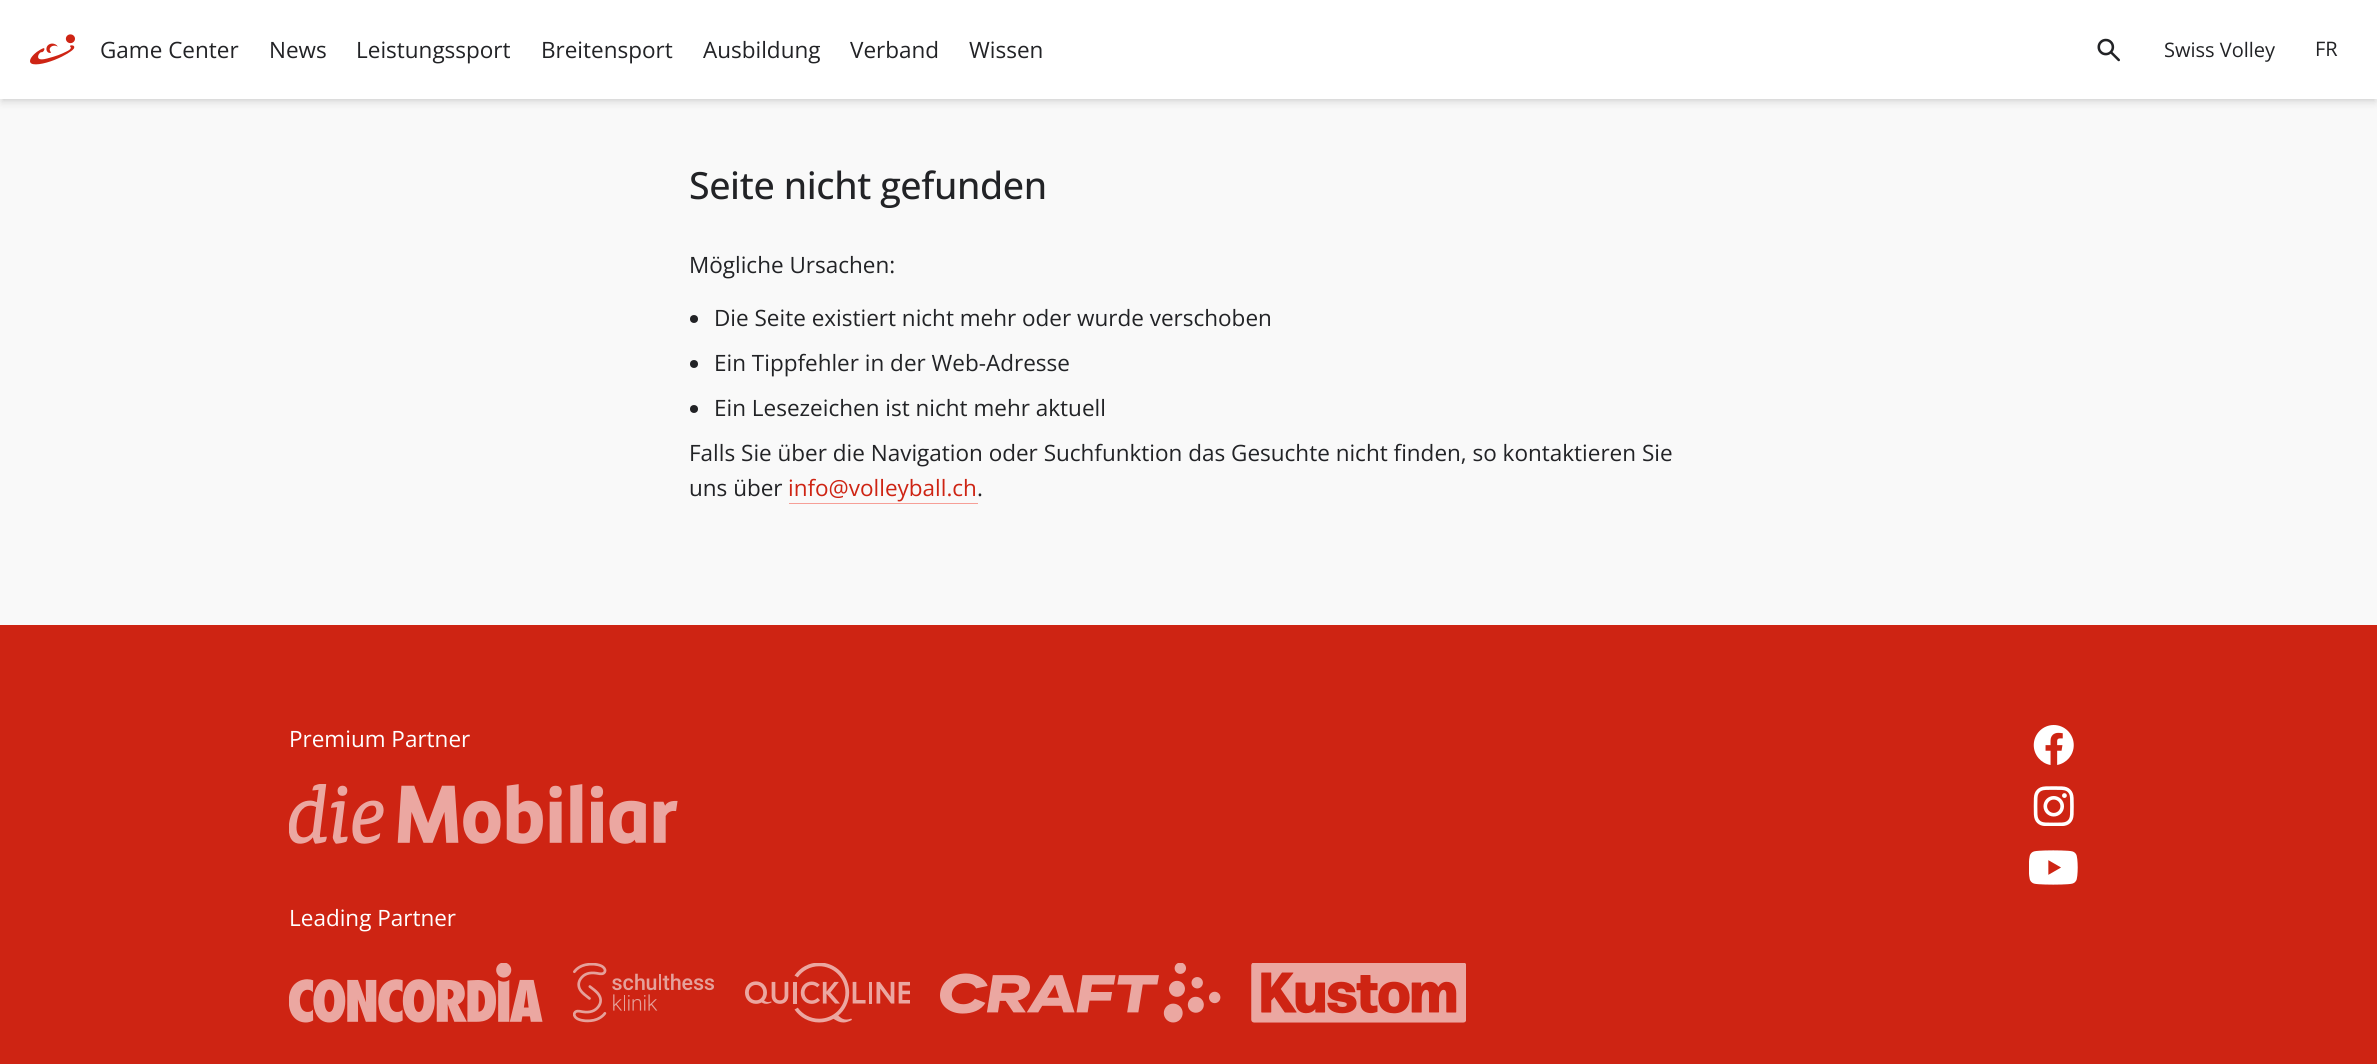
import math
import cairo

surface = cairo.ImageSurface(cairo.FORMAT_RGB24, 2377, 1064)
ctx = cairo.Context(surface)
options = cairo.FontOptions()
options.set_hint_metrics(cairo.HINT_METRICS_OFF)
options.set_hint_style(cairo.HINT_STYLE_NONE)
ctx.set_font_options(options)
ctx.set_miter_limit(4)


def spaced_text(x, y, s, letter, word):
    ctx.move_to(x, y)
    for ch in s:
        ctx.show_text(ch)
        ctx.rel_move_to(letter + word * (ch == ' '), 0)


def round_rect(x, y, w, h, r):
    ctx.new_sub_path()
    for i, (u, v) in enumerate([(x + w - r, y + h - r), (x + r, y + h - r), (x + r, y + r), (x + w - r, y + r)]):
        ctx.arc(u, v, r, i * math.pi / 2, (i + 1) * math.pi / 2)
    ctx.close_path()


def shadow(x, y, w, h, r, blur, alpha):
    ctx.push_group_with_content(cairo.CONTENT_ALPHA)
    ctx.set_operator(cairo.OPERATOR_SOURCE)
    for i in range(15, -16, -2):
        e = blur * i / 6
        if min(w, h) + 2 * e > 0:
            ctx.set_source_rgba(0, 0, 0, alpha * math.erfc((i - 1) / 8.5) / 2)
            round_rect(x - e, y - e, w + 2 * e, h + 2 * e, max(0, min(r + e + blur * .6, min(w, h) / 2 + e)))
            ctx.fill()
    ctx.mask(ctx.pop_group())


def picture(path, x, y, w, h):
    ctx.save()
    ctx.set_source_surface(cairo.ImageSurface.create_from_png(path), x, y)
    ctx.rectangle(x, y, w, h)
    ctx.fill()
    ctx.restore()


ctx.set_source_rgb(0.973, 0.973, 0.973)
ctx.paint()
ctx.set_source_rgb(0, 0, 0)
shadow(3, 5, 2372, 94, 0, 2.5, 0.1)
shadow(1, 6, 2375, 97, 0, 4, 0.1)
ctx.set_source_rgb(1, 1, 1)
ctx.rectangle(0, 0, 2377, 99)
ctx.fill()
picture("img1.png", 30, 34, 45, 31)
ctx.select_font_face("Open Sans")
ctx.set_font_size(22.5)
ctx.set_source_rgb(0.133, 0.137, 0.149)
ctx.move_to(100, 58)
ctx.show_text("Game Center")
ctx.move_to(269, 58)
ctx.show_text("News")
ctx.move_to(356, 58)
ctx.show_text("Leistungssport")
ctx.move_to(541, 58)
ctx.show_text("Breitensport")
ctx.move_to(703, 58)
ctx.show_text("Ausbildung")
ctx.move_to(850, 58)
ctx.show_text("Verband")
ctx.move_to(969, 58)
ctx.show_text("Wissen")
picture("img2.png", 2097, 38, 23, 24)
ctx.set_font_size(20)
ctx.move_to(2164, 57)
ctx.show_text("Swiss Volley")
ctx.move_to(2315, 56)
ctx.show_text("FR")
ctx.select_font_face("Open Sans Medium")
ctx.set_font_size(37.5)
spaced_text(689, 199, "Seite nicht gefunden", -0.4, 0)
ctx.select_font_face("Open Sans")
ctx.set_font_size(22.5)
ctx.move_to(689, 273)
ctx.show_text("Mögliche Ursachen:")
ctx.new_path()
ctx.arc(694, 319, 4, 0, 2 * math.pi)
ctx.fill()
ctx.move_to(714, 326)
ctx.show_text("Die Seite existiert nicht mehr oder wurde verschoben")
ctx.new_path()
ctx.arc(694, 364, 4, 0, 2 * math.pi)
ctx.fill()
ctx.move_to(714, 371)
ctx.show_text("Ein Tippfehler in der Web-Adresse")
ctx.new_path()
ctx.arc(694, 409, 4, 0, 2 * math.pi)
ctx.fill()
ctx.move_to(714, 416)
ctx.show_text("Ein Lesezeichen ist nicht mehr aktuell")
ctx.move_to(689, 461)
ctx.show_text("Falls Sie über die Navigation oder Suchfunktion das Gesuchte nicht finden, so kontaktieren Sie")
ctx.move_to(689, 496)
ctx.show_text("uns über")
ctx.set_source_rgb(0.808, 0.141, 0.078)
ctx.move_to(788, 496)
ctx.show_text("info@volleyball.ch")
ctx.set_source_rgb(0.961, 0.624, 0.592)
ctx.rectangle(789, 503, 189, 1)
ctx.fill()
ctx.set_source_rgb(0.133, 0.137, 0.149)
ctx.move_to(977, 496)
ctx.show_text(".")
ctx.set_source_rgb(0.808, 0.141, 0.078)
ctx.rectangle(0, 625, 2377, 439)
ctx.fill()
ctx.set_source_rgb(1, 1, 1)
ctx.move_to(289, 747)
ctx.show_text("Premium Partner")
picture("img3.png", 289, 784, 389, 60)
ctx.move_to(289, 926)
ctx.show_text("Leading Partner")
picture("img4.png", 289, 963, 254, 60)
picture("img5.png", 573, 963, 141, 60)
picture("img6.png", 745, 963, 165, 60)
picture("img7.png", 940, 963, 281, 60)
picture("img8.png", 1251, 963, 215, 60)
picture("img9.png", 2033, 725, 41, 40)
picture("img10.png", 2033, 786, 41, 40)
picture("img11.png", 2029, 850, 49, 35)
surface.write_to_png("page.png")
